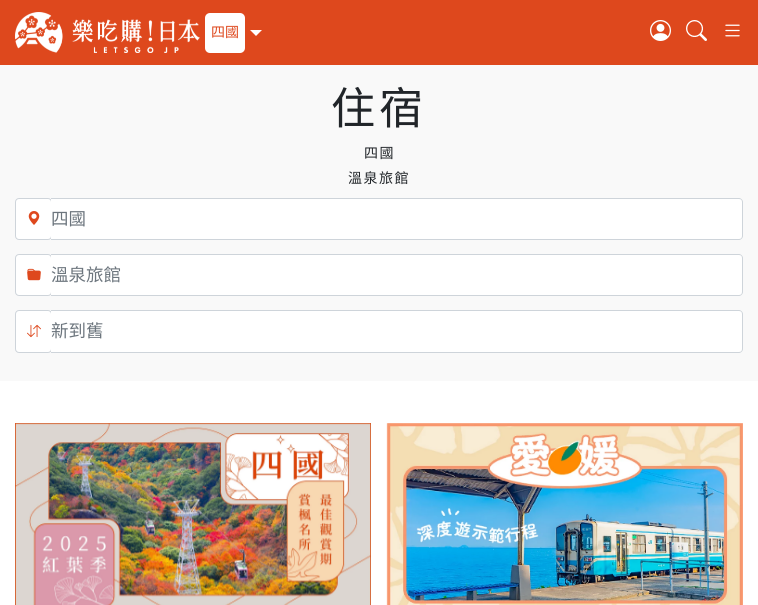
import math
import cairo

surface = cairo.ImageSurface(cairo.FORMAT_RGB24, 758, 605)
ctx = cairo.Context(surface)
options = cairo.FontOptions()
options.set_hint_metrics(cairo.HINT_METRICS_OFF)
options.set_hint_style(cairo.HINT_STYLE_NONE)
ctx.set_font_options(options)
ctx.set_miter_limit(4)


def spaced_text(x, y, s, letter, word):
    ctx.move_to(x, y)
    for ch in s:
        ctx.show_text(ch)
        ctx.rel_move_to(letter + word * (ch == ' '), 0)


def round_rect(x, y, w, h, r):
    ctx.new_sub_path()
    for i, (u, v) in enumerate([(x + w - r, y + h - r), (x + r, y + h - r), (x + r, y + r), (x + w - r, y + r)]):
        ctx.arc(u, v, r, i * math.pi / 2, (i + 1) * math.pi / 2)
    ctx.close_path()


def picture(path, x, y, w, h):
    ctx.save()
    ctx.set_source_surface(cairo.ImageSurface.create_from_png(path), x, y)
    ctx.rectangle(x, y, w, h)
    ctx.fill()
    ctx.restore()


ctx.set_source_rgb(1, 1, 1)
ctx.paint()
ctx.set_source_rgb(0.871, 0.282, 0.114)
ctx.rectangle(0, 0, 758, 65)
ctx.fill()
picture("img1.png", 15, 12, 185, 41)
ctx.set_source_rgb(1, 1, 1)
round_rect(205, 13, 40, 40, 5)
ctx.fill()
ctx.select_font_face("Noto Sans CJK TC")
ctx.set_font_size(14)
ctx.set_source_rgb(0.871, 0.282, 0.114)
ctx.move_to(211, 37)
ctx.show_text("四國")
ctx.set_source_rgb(1, 1, 1)
ctx.new_path()
ctx.move_to(250, 30)
ctx.line_to(262, 30)
ctx.line_to(256, 36)
ctx.close_path()
ctx.fill()
picture("img2.png", 650, 20, 21, 21)
picture("img3.png", 686, 20, 21, 21)
picture("img4.png", 725, 24, 15, 13)
ctx.set_source_rgb(0.973, 0.973, 0.973)
ctx.rectangle(0, 65, 758, 316)
ctx.fill()
ctx.set_font_size(44)
ctx.set_source_rgb(0.129, 0.145, 0.161)
spaced_text(331, 124, "住宿", 4, 0)
ctx.set_font_size(14)
spaced_text(364, 158, "四國", 1.5, 0)
spaced_text(348, 183, "溫泉旅館", 1.5, 0)
ctx.set_source_rgb(1, 1, 1)
round_rect(15.5, 198.5, 36, 41, 3.5)
ctx.fill_preserve()
ctx.set_source_rgb(0.808, 0.831, 0.855)
ctx.set_line_width(1)
ctx.stroke()
picture("img5.png", 28, 211, 12, 14)
ctx.set_source_rgb(1, 1, 1)
ctx.new_path()
ctx.move_to(51, 199)
ctx.line_to(739, 199)
ctx.curve_to(740.5, 199, 742, 200.5, 742, 202)
ctx.line_to(742, 236)
ctx.curve_to(742, 237.5, 740.5, 239, 739, 239)
ctx.line_to(51, 239)
ctx.close_path()
ctx.fill()
ctx.set_source_rgb(0.808, 0.831, 0.855)
ctx.set_fill_rule(cairo.FILL_RULE_EVEN_ODD)
ctx.new_path()
ctx.move_to(51, 198)
ctx.line_to(739, 198)
ctx.curve_to(741, 198, 743, 200, 743, 202)
ctx.line_to(743, 236)
ctx.curve_to(743, 238, 741, 240, 739, 240)
ctx.line_to(51, 240)
ctx.close_path()
ctx.move_to(51, 199)
ctx.line_to(739, 199)
ctx.curve_to(741, 199, 742, 200, 742, 202)
ctx.line_to(742, 236)
ctx.curve_to(742, 238, 741, 239, 739, 239)
ctx.line_to(51, 239)
ctx.close_path()
ctx.fill()
ctx.set_font_size(17.5)
ctx.set_source_rgb(0.424, 0.459, 0.49)
ctx.move_to(51, 225)
ctx.show_text("四國")
ctx.set_source_rgb(1, 1, 1)
round_rect(15.5, 254.5, 36, 41, 3.5)
ctx.fill_preserve()
ctx.set_source_rgb(0.808, 0.831, 0.855)
ctx.stroke()
picture("img6.png", 27, 268, 14, 13)
ctx.set_source_rgb(1, 1, 1)
ctx.new_path()
ctx.move_to(51, 255)
ctx.line_to(739, 255)
ctx.curve_to(740.5, 255, 742, 256.5, 742, 258)
ctx.line_to(742, 292)
ctx.curve_to(742, 293.5, 740.5, 295, 739, 295)
ctx.line_to(51, 295)
ctx.close_path()
ctx.fill()
ctx.set_source_rgb(0.808, 0.831, 0.855)
ctx.new_path()
ctx.move_to(51, 254)
ctx.line_to(739, 254)
ctx.curve_to(741, 254, 743, 256, 743, 258)
ctx.line_to(743, 292)
ctx.curve_to(743, 294, 741, 296, 739, 296)
ctx.line_to(51, 296)
ctx.close_path()
ctx.move_to(51, 255)
ctx.line_to(739, 255)
ctx.curve_to(741, 255, 742, 256, 742, 258)
ctx.line_to(742, 292)
ctx.curve_to(742, 294, 741, 295, 739, 295)
ctx.line_to(51, 295)
ctx.close_path()
ctx.fill()
ctx.set_source_rgb(0.424, 0.459, 0.49)
ctx.move_to(51, 281)
ctx.show_text("溫泉旅館")
ctx.set_source_rgb(1, 1, 1)
round_rect(15.5, 310.5, 36, 42, 3.5)
ctx.fill_preserve()
ctx.set_source_rgb(0.808, 0.831, 0.855)
ctx.stroke()
picture("img7.png", 27, 324, 14, 14)
ctx.set_source_rgb(1, 1, 1)
ctx.new_path()
ctx.move_to(51, 311)
ctx.line_to(739, 311)
ctx.curve_to(740.5, 311, 742, 312.5, 742, 314)
ctx.line_to(742, 349)
ctx.curve_to(742, 350.5, 740.5, 352, 739, 352)
ctx.line_to(51, 352)
ctx.close_path()
ctx.fill()
ctx.set_source_rgb(0.808, 0.831, 0.855)
ctx.new_path()
ctx.move_to(51, 310)
ctx.line_to(739, 310)
ctx.curve_to(741, 310, 743, 312, 743, 314)
ctx.line_to(743, 349)
ctx.curve_to(743, 351, 741, 353, 739, 353)
ctx.line_to(51, 353)
ctx.close_path()
ctx.move_to(51, 311)
ctx.line_to(739, 311)
ctx.curve_to(741, 311, 742, 312, 742, 314)
ctx.line_to(742, 349)
ctx.curve_to(742, 351, 741, 352, 739, 352)
ctx.line_to(51, 352)
ctx.close_path()
ctx.fill()
ctx.set_source_rgb(0.424, 0.459, 0.49)
ctx.move_to(51, 337)
ctx.show_text("新到舊")
picture("img8.png", 15, 423, 356, 182)
picture("img9.png", 386, 423, 357, 182)
surface.write_to_png("page.png")
